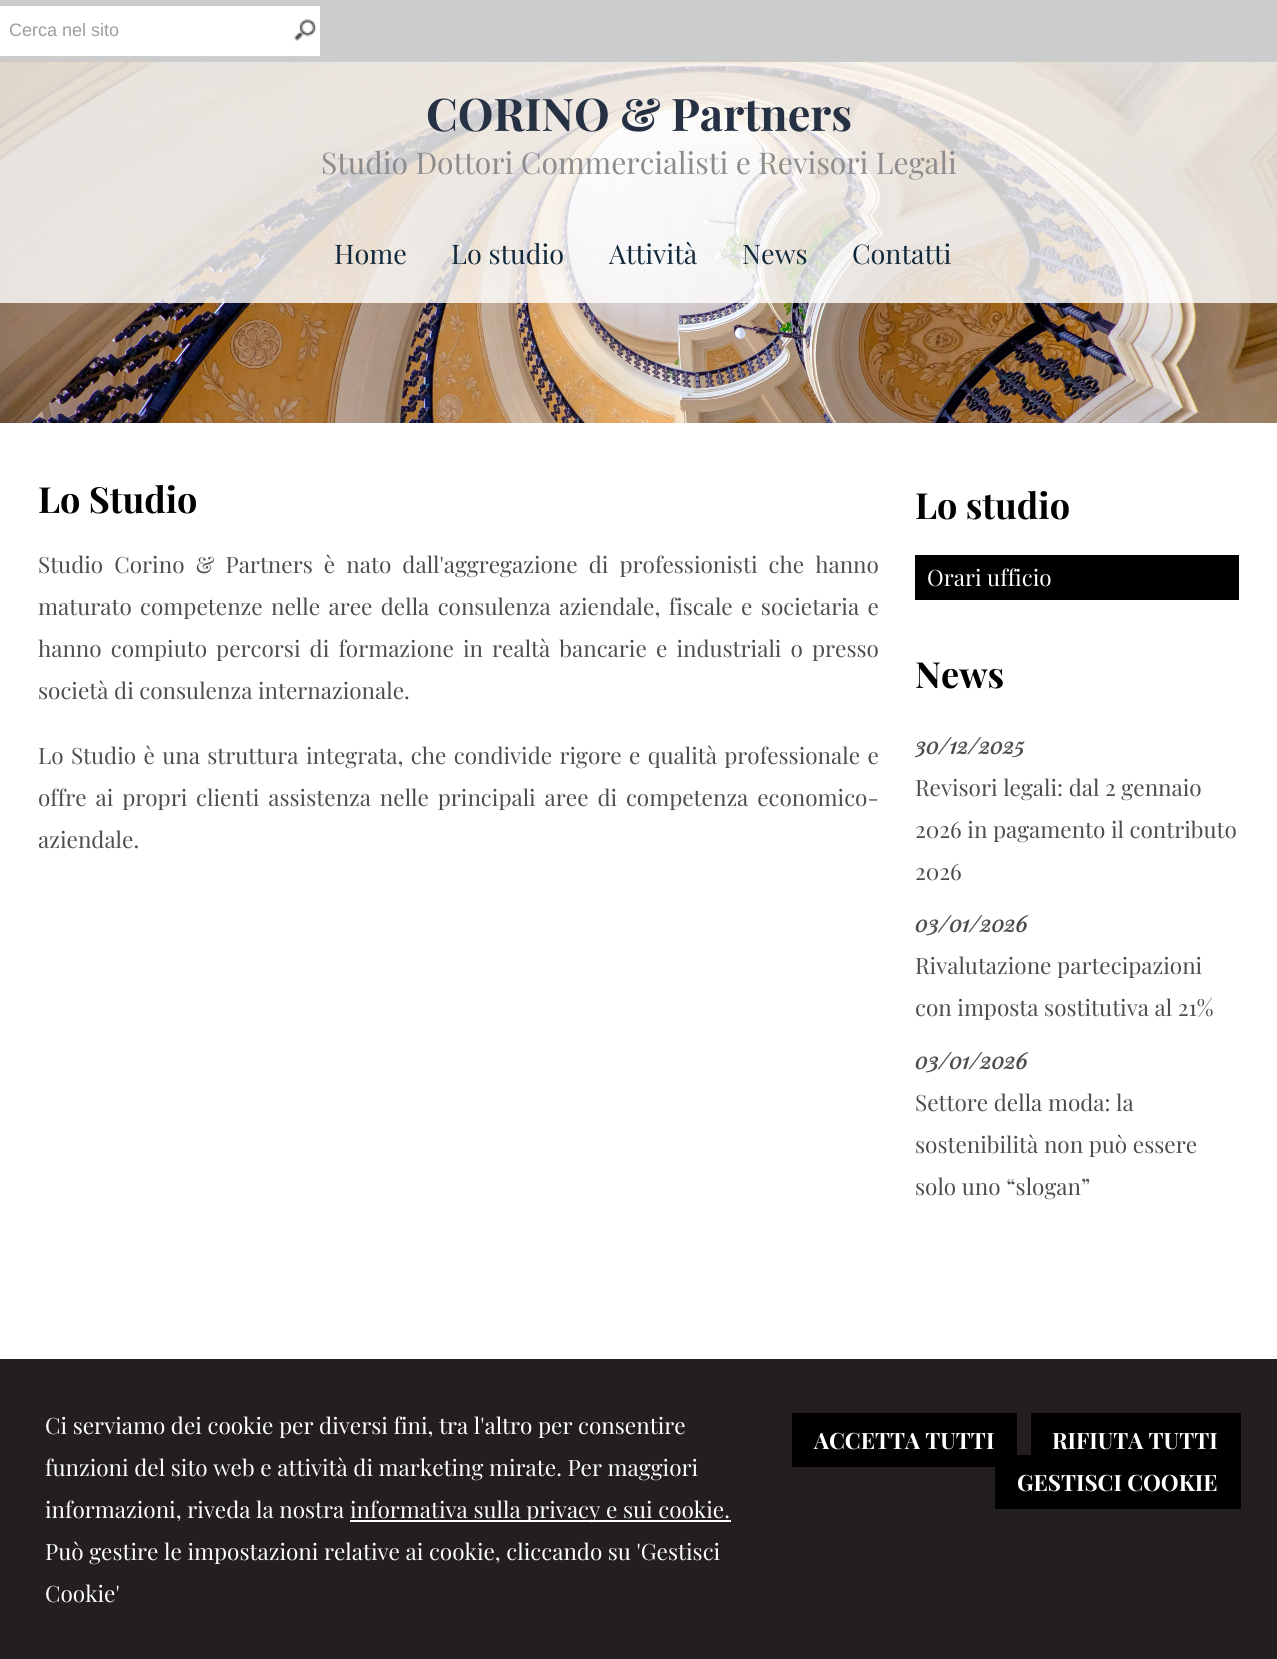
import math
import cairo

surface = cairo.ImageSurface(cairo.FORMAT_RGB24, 1277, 1659)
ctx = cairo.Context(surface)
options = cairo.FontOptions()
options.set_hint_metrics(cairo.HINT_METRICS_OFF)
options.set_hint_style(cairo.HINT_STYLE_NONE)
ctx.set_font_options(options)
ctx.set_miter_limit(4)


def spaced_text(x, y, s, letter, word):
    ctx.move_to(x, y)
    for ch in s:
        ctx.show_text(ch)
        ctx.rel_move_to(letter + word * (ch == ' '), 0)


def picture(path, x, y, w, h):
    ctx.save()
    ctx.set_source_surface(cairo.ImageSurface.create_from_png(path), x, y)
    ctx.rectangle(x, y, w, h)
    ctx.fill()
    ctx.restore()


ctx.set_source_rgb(1, 1, 1)
ctx.paint()
picture("img1.png", 0, 62, 1277, 361)
ctx.set_source_rgb(0.8, 0.8, 0.8)
ctx.rectangle(0, 0, 1277, 62)
ctx.fill()
ctx.set_source_rgb(1, 1, 1)
ctx.rectangle(0, 6, 320, 50)
ctx.fill()
ctx.select_font_face("Liberation Sans")
ctx.set_font_size(18)
ctx.set_source_rgb(0.616, 0.616, 0.612)
ctx.move_to(9, 36)
ctx.show_text("Cerca nel sito")
picture("img2.png", 293, 19, 23, 22)
ctx.set_source_rgba(1, 1, 1, 0.8)
ctx.rectangle(0, 62, 1277, 241)
ctx.fill()
ctx.select_font_face("Playfair Display", cairo.FONT_SLANT_NORMAL, cairo.FONT_WEIGHT_BOLD)
ctx.set_font_size(45)
ctx.set_source_rgb(0.149, 0.196, 0.267)
ctx.move_to(426, 131)
ctx.show_text("CORINO & Partners")
ctx.select_font_face("Playfair Display")
ctx.set_font_size(30)
ctx.set_source_rgb(0.549, 0.549, 0.549)
ctx.move_to(321, 174)
ctx.show_text("Studio Dottori Commercialisti e Revisori Legali")
ctx.set_font_size(27)
ctx.set_source_rgb(0.071, 0.161, 0.231)
ctx.move_to(334, 264)
ctx.show_text("Home")
ctx.move_to(451, 264)
ctx.show_text("Lo studio")
ctx.move_to(609, 264)
ctx.show_text("Attività")
ctx.move_to(742, 264)
ctx.show_text("News")
ctx.move_to(852, 264)
ctx.show_text("Contatti")
ctx.select_font_face("Playfair Display", cairo.FONT_SLANT_NORMAL, cairo.FONT_WEIGHT_BOLD)
ctx.set_font_size(36)
ctx.set_source_rgb(0, 0, 0)
ctx.move_to(38, 513)
ctx.show_text("Lo Studio")
ctx.select_font_face("Playfair Display")
ctx.set_font_size(22.5)
ctx.set_source_rgb(0.302, 0.302, 0.302)
spaced_text(38, 573, "Studio Corino & Partners è nato dall'aggregazione di professionisti che hanno", 0, 5.5)
spaced_text(38, 615, "maturato competenze nelle aree della consulenza aziendale, fiscale e societaria e", 0, 2.75)
spaced_text(38, 657, "hanno compiuto percorsi di formazione in realtà bancarie e industriali o presso", 0, 3.5)
ctx.move_to(38, 699)
ctx.show_text("società di consulenza internazionale.")
spaced_text(38, 764, "Lo Studio è una struttura integrata, che condivide rigore e qualità professionale e", 0, 1.75)
spaced_text(38, 806, "offre ai propri clienti assistenza nelle principali aree di competenza economico-", 0, 3.25)
ctx.move_to(38, 848)
ctx.show_text("aziendale.")
ctx.select_font_face("Playfair Display", cairo.FONT_SLANT_NORMAL, cairo.FONT_WEIGHT_BOLD)
ctx.set_font_size(36)
ctx.set_source_rgb(0, 0, 0)
ctx.move_to(915, 519)
ctx.show_text("Lo studio")
ctx.rectangle(915, 555, 324, 45)
ctx.fill()
ctx.select_font_face("Playfair Display")
ctx.set_font_size(22.5)
ctx.set_source_rgb(1, 1, 1)
ctx.move_to(927, 586)
ctx.show_text("Orari ufficio")
ctx.select_font_face("Playfair Display", cairo.FONT_SLANT_NORMAL, cairo.FONT_WEIGHT_BOLD)
ctx.set_font_size(36)
ctx.set_source_rgb(0, 0, 0)
ctx.move_to(915, 688)
ctx.show_text("News")
ctx.save()
ctx.rectangle(915, 725, 324, 171)
ctx.clip()
ctx.select_font_face("Playfair Display", cairo.FONT_SLANT_ITALIC, cairo.FONT_WEIGHT_BOLD)
ctx.set_font_size(22.5)
ctx.set_source_rgb(0.302, 0.302, 0.302)
ctx.move_to(915, 754)
ctx.show_text("30/12/2025")
ctx.restore()
ctx.select_font_face("Playfair Display")
ctx.set_font_size(22.5)
ctx.set_source_rgb(0.302, 0.302, 0.302)
ctx.move_to(915, 796)
ctx.show_text("Revisori legali: dal 2 gennaio")
ctx.move_to(915, 838)
ctx.show_text("2026 in pagamento il contributo")
ctx.move_to(915, 880)
ctx.show_text("2026")
ctx.select_font_face("Playfair Display", cairo.FONT_SLANT_ITALIC, cairo.FONT_WEIGHT_BOLD)
ctx.move_to(915, 932)
ctx.show_text("03/01/2026")
ctx.select_font_face("Playfair Display")
ctx.move_to(915, 974)
ctx.show_text("Rivalutazione partecipazioni")
ctx.move_to(915, 1016)
ctx.show_text("con imposta sostitutiva al 21%")
ctx.select_font_face("Playfair Display", cairo.FONT_SLANT_ITALIC, cairo.FONT_WEIGHT_BOLD)
ctx.move_to(915, 1069)
ctx.show_text("03/01/2026")
ctx.select_font_face("Playfair Display")
ctx.move_to(915, 1111)
ctx.show_text("Settore della moda: la")
ctx.move_to(915, 1153)
ctx.show_text("sostenibilità non può essere")
ctx.move_to(915, 1195)
ctx.show_text("solo uno “slogan”")
ctx.set_source_rgb(0.137, 0.122, 0.125)
ctx.rectangle(0, 1359, 1277, 300)
ctx.fill()
ctx.set_source_rgb(1, 1, 1)
ctx.move_to(45, 1434)
ctx.show_text("Ci serviamo dei cookie per diversi fini, tra l'altro per consentire")
ctx.move_to(45, 1476)
ctx.show_text("funzioni del sito web e attività di marketing mirate. Per maggiori")
ctx.move_to(45, 1518)
ctx.show_text("informazioni, riveda la nostra")
ctx.rectangle(350, 1520, 381, 2)
ctx.fill()
ctx.move_to(350, 1518)
ctx.show_text("informativa sulla privacy e sui cookie.")
ctx.move_to(45, 1560)
ctx.show_text("Può gestire le impostazioni relative ai cookie, cliccando su 'Gestisci")
ctx.move_to(45, 1602)
ctx.show_text("Cookie'")
ctx.set_source_rgb(0, 0, 0)
ctx.rectangle(792, 1413, 225, 54)
ctx.fill()
ctx.select_font_face("Playfair Display", cairo.FONT_SLANT_NORMAL, cairo.FONT_WEIGHT_BOLD)
ctx.set_source_rgb(1, 1, 1)
ctx.move_to(814, 1449)
ctx.show_text("ACCETTA TUTTI")
ctx.set_source_rgb(0, 0, 0)
ctx.rectangle(1031, 1413, 210, 42)
ctx.fill()
ctx.set_source_rgb(1, 1, 1)
ctx.move_to(1052, 1449)
ctx.show_text("RIFIUTA TUTTI")
ctx.set_source_rgb(0, 0, 0)
ctx.rectangle(995, 1455, 246, 54)
ctx.fill()
ctx.set_source_rgb(1, 1, 1)
ctx.move_to(1017, 1491)
ctx.show_text("GESTISCI COOKIE")
surface.write_to_png("page.png")
